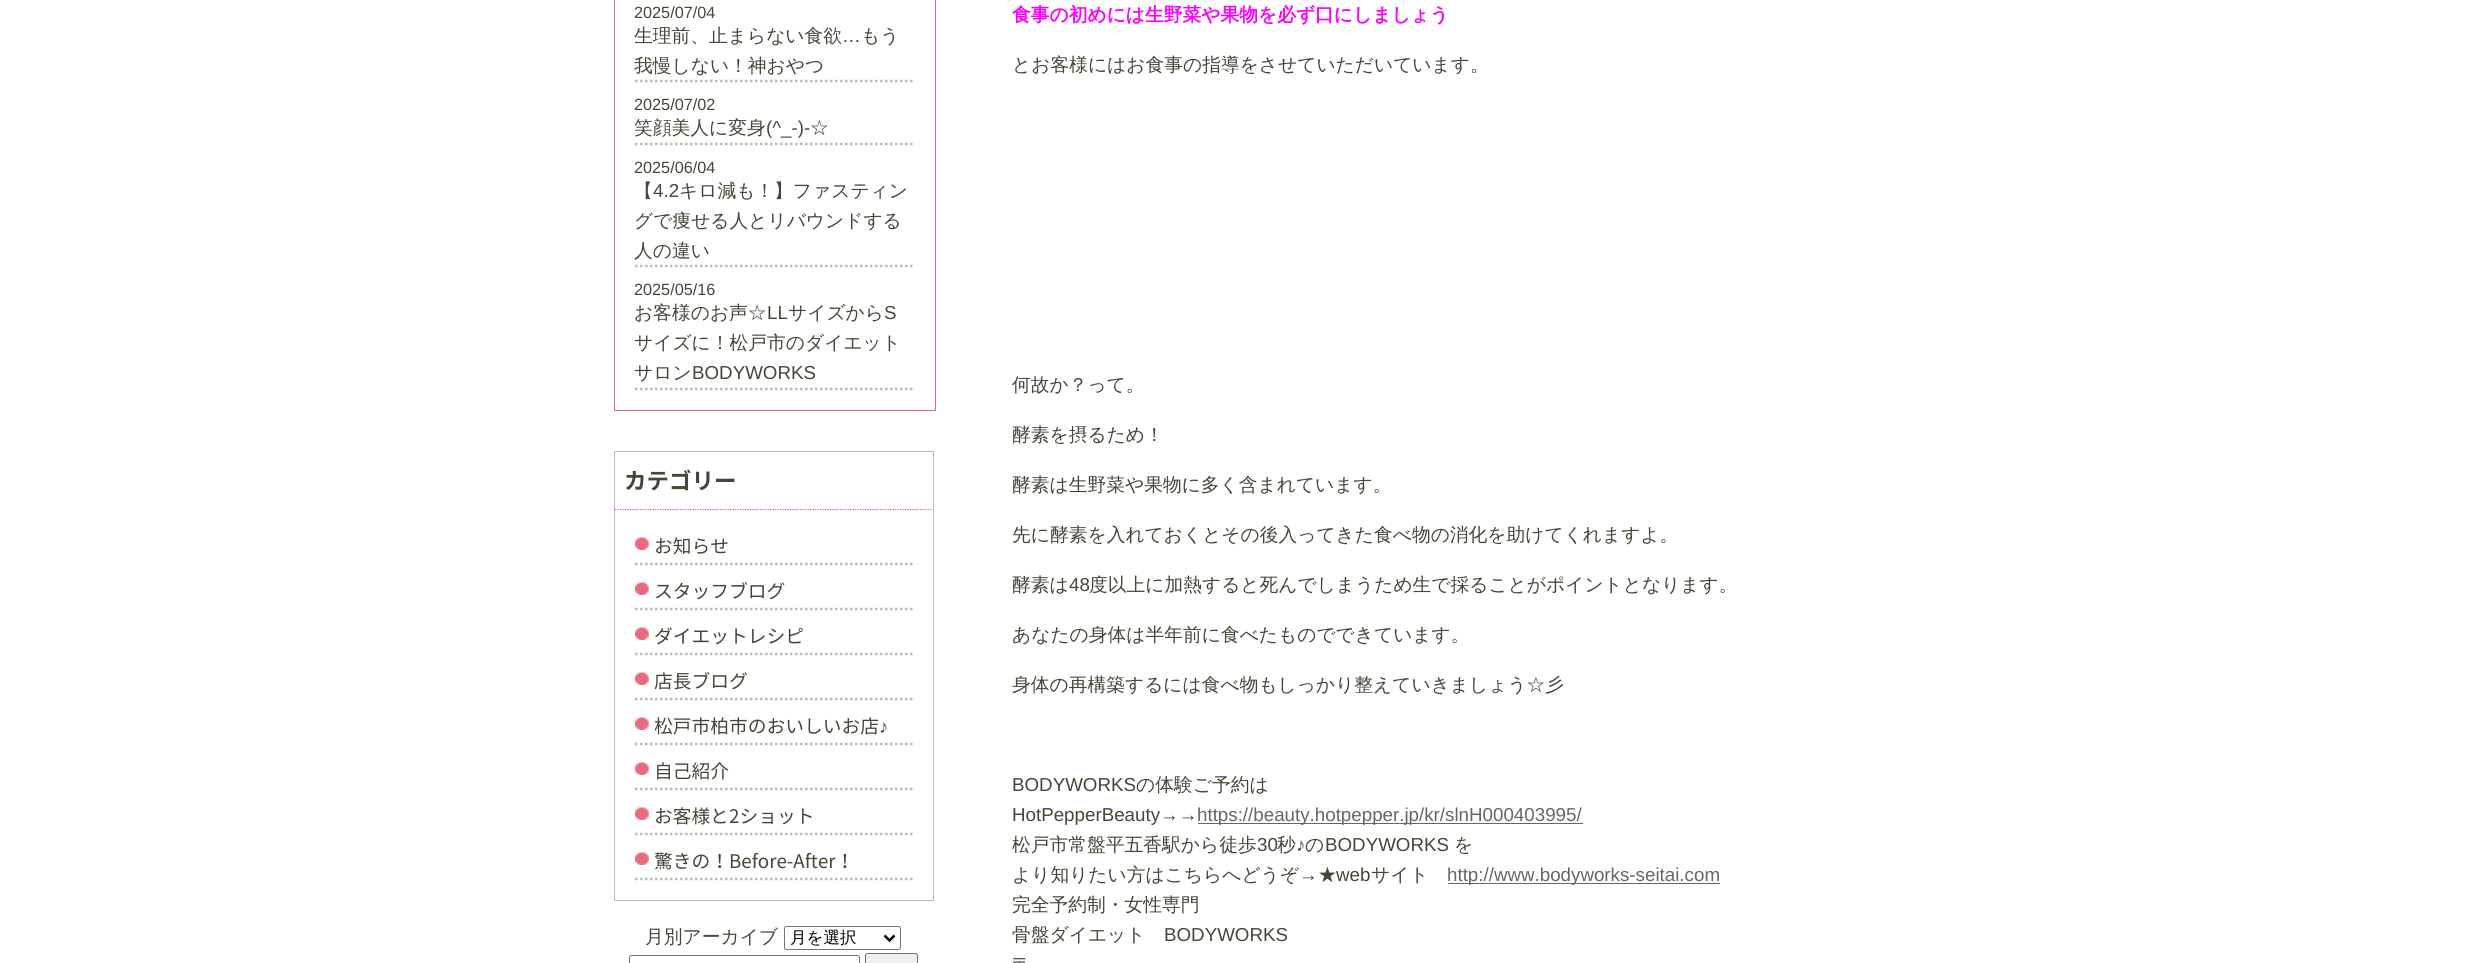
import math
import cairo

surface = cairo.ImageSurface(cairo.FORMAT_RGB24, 2476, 963)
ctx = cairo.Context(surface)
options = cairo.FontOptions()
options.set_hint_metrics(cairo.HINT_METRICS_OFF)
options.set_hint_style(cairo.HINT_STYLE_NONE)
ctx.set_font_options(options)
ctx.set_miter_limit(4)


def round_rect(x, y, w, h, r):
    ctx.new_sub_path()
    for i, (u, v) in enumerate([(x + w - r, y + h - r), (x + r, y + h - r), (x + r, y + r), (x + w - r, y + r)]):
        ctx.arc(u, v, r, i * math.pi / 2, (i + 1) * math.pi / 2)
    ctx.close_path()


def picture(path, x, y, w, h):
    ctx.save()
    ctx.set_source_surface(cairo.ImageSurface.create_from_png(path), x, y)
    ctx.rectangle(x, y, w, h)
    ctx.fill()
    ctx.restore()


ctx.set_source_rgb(1, 1, 1)
ctx.paint()
ctx.rectangle(614.5, -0.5, 321, 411)
ctx.set_source_rgb(0.91, 0.388, 0.471)
ctx.set_line_width(1)
ctx.stroke()
ctx.new_path()
ctx.move_to(635, 81)
ctx.line_to(915, 81)
ctx.set_source_rgb(0.737, 0.737, 0.698)
ctx.set_line_width(2.5)
ctx.set_dash([2.5, 2.5])
ctx.stroke()
ctx.select_font_face("Liberation Sans")
ctx.set_font_size(16.25)
ctx.set_source_rgb(0.275, 0.275, 0.216)
ctx.move_to(634, 18)
ctx.show_text("2025/07/04")
ctx.select_font_face("WenQuanYi Zen Hei Medium")
ctx.set_font_size(18.75)
ctx.move_to(634, 42)
ctx.show_text("生理前、止まらない食欲")
ctx.select_font_face("Liberation Sans")
ctx.move_to(842, 42)
ctx.show_text("…")
ctx.select_font_face("WenQuanYi Zen Hei Medium")
ctx.move_to(861, 42)
ctx.show_text("もう")
ctx.move_to(634, 72)
ctx.show_text("我慢しない！神おやつ")
ctx.new_path()
ctx.move_to(635, 144)
ctx.line_to(915, 144)
ctx.set_source_rgb(0.737, 0.737, 0.698)
ctx.stroke()
ctx.select_font_face("Liberation Sans")
ctx.set_font_size(16.25)
ctx.set_source_rgb(0.275, 0.275, 0.216)
ctx.move_to(634, 110)
ctx.show_text("2025/07/02")
ctx.select_font_face("WenQuanYi Zen Hei Medium")
ctx.set_font_size(18.75)
ctx.move_to(634, 134)
ctx.show_text("笑顔美人に変身")
ctx.select_font_face("Liberation Sans")
ctx.move_to(766, 134)
ctx.show_text("(^_-)-")
ctx.select_font_face("WenQuanYi Zen Hei Medium")
ctx.move_to(810, 134)
ctx.show_text("☆")
ctx.new_path()
ctx.move_to(635, 266)
ctx.line_to(915, 266)
ctx.set_source_rgb(0.737, 0.737, 0.698)
ctx.stroke()
ctx.select_font_face("Liberation Sans")
ctx.set_font_size(16.25)
ctx.set_source_rgb(0.275, 0.275, 0.216)
ctx.move_to(634, 173)
ctx.show_text("2025/06/04")
ctx.select_font_face("WenQuanYi Zen Hei Medium")
ctx.set_font_size(18.75)
ctx.move_to(634, 197)
ctx.show_text("【")
ctx.select_font_face("Liberation Sans")
ctx.move_to(653, 197)
ctx.show_text("4.2")
ctx.select_font_face("WenQuanYi Zen Hei Medium")
ctx.move_to(679, 197)
ctx.show_text("キロ減も！】ファスティン")
ctx.move_to(634, 227)
ctx.show_text("グで痩せる人とリバウンドする")
ctx.move_to(634, 257)
ctx.show_text("人の違い")
ctx.new_path()
ctx.move_to(635, 389)
ctx.line_to(915, 389)
ctx.set_source_rgb(0.737, 0.737, 0.698)
ctx.stroke()
ctx.select_font_face("Liberation Sans")
ctx.set_font_size(16.25)
ctx.set_source_rgb(0.275, 0.275, 0.216)
ctx.move_to(634, 295)
ctx.show_text("2025/05/16")
ctx.select_font_face("WenQuanYi Zen Hei Medium")
ctx.set_font_size(18.75)
ctx.move_to(634, 319)
ctx.show_text("お客様のお声☆")
ctx.select_font_face("Liberation Sans")
ctx.move_to(767, 319)
ctx.show_text("LL")
ctx.select_font_face("WenQuanYi Zen Hei Medium")
ctx.move_to(788, 319)
ctx.show_text("サイズから")
ctx.select_font_face("Liberation Sans")
ctx.move_to(884, 319)
ctx.show_text("S")
ctx.select_font_face("WenQuanYi Zen Hei Medium")
ctx.move_to(634, 349)
ctx.show_text("サイズに！松戸市のダイエット")
ctx.move_to(634, 379)
ctx.show_text("サロン")
ctx.select_font_face("Liberation Sans")
ctx.move_to(692, 379)
ctx.show_text("BODYWORKS")
ctx.rectangle(614.5, 451.5, 319, 449)
ctx.set_source_rgb(0.741, 0.741, 0.682)
ctx.set_line_width(1)
ctx.set_dash([])
ctx.stroke()
ctx.new_path()
ctx.move_to(615, 509.5)
ctx.line_to(932.5, 509.5)
ctx.set_source_rgb(0.91, 0.388, 0.471)
ctx.set_line_width(1.2)
ctx.set_dash([1.25, 1.25])
ctx.stroke()
ctx.select_font_face("Noto Sans JP", cairo.FONT_SLANT_NORMAL, cairo.FONT_WEIGHT_BOLD)
ctx.set_font_size(22.5)
ctx.set_source_rgb(0.275, 0.275, 0.216)
ctx.move_to(624, 489)
ctx.show_text("カテゴリー")
picture("img1.png", 635, 537, 14, 13)
ctx.new_path()
ctx.move_to(635, 564)
ctx.line_to(912.5, 564)
ctx.set_source_rgb(0.737, 0.737, 0.698)
ctx.set_line_width(2.5)
ctx.set_dash([2.5, 2.5])
ctx.stroke()
ctx.select_font_face("Noto Sans JP")
ctx.set_font_size(18.75)
ctx.set_source_rgb(0.275, 0.275, 0.216)
ctx.move_to(654, 553)
ctx.show_text("お知らせ")
picture("img1.png", 635, 582, 14, 13)
ctx.new_path()
ctx.move_to(635, 609)
ctx.line_to(912.5, 609)
ctx.set_source_rgb(0.737, 0.737, 0.698)
ctx.stroke()
ctx.set_source_rgb(0.275, 0.275, 0.216)
ctx.move_to(654, 598)
ctx.show_text("スタッフブログ")
picture("img1.png", 635, 627, 14, 13)
ctx.new_path()
ctx.move_to(635, 654)
ctx.line_to(912.5, 654)
ctx.set_source_rgb(0.737, 0.737, 0.698)
ctx.stroke()
ctx.set_source_rgb(0.275, 0.275, 0.216)
ctx.move_to(654, 643)
ctx.show_text("ダイエットレシピ")
picture("img1.png", 635, 672, 14, 13)
ctx.new_path()
ctx.move_to(635, 699)
ctx.line_to(912.5, 699)
ctx.set_source_rgb(0.737, 0.737, 0.698)
ctx.stroke()
ctx.set_source_rgb(0.275, 0.275, 0.216)
ctx.move_to(654, 688)
ctx.show_text("店長ブログ")
picture("img1.png", 635, 717, 14, 13)
ctx.new_path()
ctx.move_to(635, 744)
ctx.line_to(912.5, 744)
ctx.set_source_rgb(0.737, 0.737, 0.698)
ctx.stroke()
ctx.set_source_rgb(0.275, 0.275, 0.216)
ctx.move_to(654, 733)
ctx.show_text("松戸市柏市のおいしいお店")
ctx.select_font_face("Liberation Sans")
ctx.move_to(879, 733)
ctx.show_text("♪")
picture("img1.png", 635, 762, 14, 13)
ctx.new_path()
ctx.move_to(635, 789)
ctx.line_to(912.5, 789)
ctx.set_source_rgb(0.737, 0.737, 0.698)
ctx.stroke()
ctx.select_font_face("Noto Sans JP")
ctx.set_source_rgb(0.275, 0.275, 0.216)
ctx.move_to(654, 778)
ctx.show_text("自己紹介")
picture("img1.png", 635, 807, 14, 13)
ctx.new_path()
ctx.move_to(635, 834)
ctx.line_to(912.5, 834)
ctx.set_source_rgb(0.737, 0.737, 0.698)
ctx.stroke()
ctx.set_source_rgb(0.275, 0.275, 0.216)
ctx.move_to(654, 823)
ctx.show_text("お客様と2ショット")
picture("img1.png", 635, 852, 14, 13)
ctx.new_path()
ctx.move_to(635, 879)
ctx.line_to(912.5, 879)
ctx.set_source_rgb(0.737, 0.737, 0.698)
ctx.stroke()
ctx.set_source_rgb(0.275, 0.275, 0.216)
ctx.move_to(654, 868)
ctx.show_text("驚きの！Before-After！")
ctx.select_font_face("WenQuanYi Zen Hei Medium")
ctx.move_to(645, 943)
ctx.show_text("月別アーカイブ")
round_rect(784.5, 926.5, 116, 23, 2)
ctx.set_source_rgb(0.463, 0.463, 0.463)
ctx.set_line_width(1)
ctx.set_dash([])
ctx.stroke()
ctx.new_path()
ctx.move_to(884.5, 935.5)
ctx.line_to(889.5, 940.5)
ctx.line_to(894.5, 935.5)
ctx.set_source_rgb(0, 0, 0)
ctx.set_line_width(2.5)
ctx.stroke()
ctx.set_font_size(16.5)
ctx.move_to(790, 943)
ctx.show_text("月を選択")
round_rect(629.5, 955.5, 230, 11, 2)
ctx.set_source_rgb(0.463, 0.463, 0.463)
ctx.set_line_width(1)
ctx.stroke()
ctx.set_source_rgb(0.937, 0.937, 0.937)
round_rect(865.5, 953.5, 52, 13, 2)
ctx.fill_preserve()
ctx.set_source_rgb(0.463, 0.463, 0.463)
ctx.stroke()
ctx.select_font_face("WenQuanYi Zen Hei", cairo.FONT_SLANT_NORMAL, cairo.FONT_WEIGHT_BOLD)
ctx.set_font_size(18.75)
ctx.set_source_rgb(1, 0, 1)
ctx.move_to(1012, 21)
ctx.show_text("食事の初めには生野菜や果物を必ず口にしましょう")
ctx.select_font_face("WenQuanYi Zen Hei Medium")
ctx.set_source_rgb(0.275, 0.275, 0.216)
ctx.move_to(1012, 71)
ctx.show_text("とお客様にはお食事の指導をさせていただいています。")
ctx.move_to(1012, 391)
ctx.show_text("何故か？って。")
ctx.move_to(1012, 441)
ctx.show_text("酵素を摂るため！")
ctx.move_to(1012, 491)
ctx.show_text("酵素は生野菜や果物に多く含まれています。")
ctx.move_to(1012, 541)
ctx.show_text("先に酵素を入れておくとその後入ってきた食べ物の消化を助けてくれますよ。")
ctx.move_to(1012, 591)
ctx.show_text("酵素は")
ctx.select_font_face("Liberation Sans")
ctx.move_to(1069, 591)
ctx.show_text("48")
ctx.select_font_face("WenQuanYi Zen Hei Medium")
ctx.move_to(1089, 591)
ctx.show_text("度以上に加熱すると死んでしまうため生で採ることがポイントとなります。")
ctx.move_to(1012, 641)
ctx.show_text("あなたの身体は半年前に食べたものでできています。")
ctx.move_to(1012, 691)
ctx.show_text("身体の再構築するには食べ物もしっかり整えていきましょう☆彡")
ctx.select_font_face("Liberation Sans")
ctx.move_to(1012, 791)
ctx.show_text("BODYWORKS")
ctx.select_font_face("WenQuanYi Zen Hei Medium")
ctx.move_to(1136, 791)
ctx.show_text("の体験ご予約は")
ctx.select_font_face("Liberation Sans")
ctx.move_to(1012, 821)
ctx.show_text("HotPepperBeauty→→")
ctx.set_source_rgb(0.4, 0.4, 0.4)
ctx.rectangle(1198, 823, 385, 1)
ctx.fill()
ctx.move_to(1197, 821)
ctx.show_text("https://beauty.hotpepper.jp/kr/slnH000403995/")
ctx.select_font_face("WenQuanYi Zen Hei Medium")
ctx.set_source_rgb(0.275, 0.275, 0.216)
ctx.move_to(1012, 851)
ctx.show_text("松戸市常盤平五香駅から徒歩")
ctx.select_font_face("Liberation Sans")
ctx.move_to(1257, 851)
ctx.show_text("30")
ctx.select_font_face("WenQuanYi Zen Hei Medium")
ctx.move_to(1277, 851)
ctx.show_text("秒")
ctx.select_font_face("Liberation Sans")
ctx.move_to(1296, 851)
ctx.show_text("♪")
ctx.select_font_face("WenQuanYi Zen Hei Medium")
ctx.move_to(1305, 851)
ctx.show_text("の")
ctx.select_font_face("Liberation Sans")
ctx.move_to(1325, 851)
ctx.show_text("BODYWORKS")
ctx.select_font_face("WenQuanYi Zen Hei Medium")
ctx.move_to(1454, 851)
ctx.show_text("を")
ctx.move_to(1012, 881)
ctx.show_text("より知りたい方はこちらへどうぞ")
ctx.select_font_face("Liberation Sans")
ctx.move_to(1299, 881)
ctx.show_text("→")
ctx.select_font_face("WenQuanYi Zen Hei Medium")
ctx.move_to(1318, 881)
ctx.show_text("★")
ctx.select_font_face("Liberation Sans")
ctx.move_to(1336, 881)
ctx.show_text("web")
ctx.select_font_face("WenQuanYi Zen Hei Medium")
ctx.move_to(1371, 881)
ctx.show_text("サイト")
ctx.set_source_rgb(0.4, 0.4, 0.4)
ctx.rectangle(1448, 883, 272, 1)
ctx.fill()
ctx.select_font_face("Liberation Sans")
ctx.move_to(1447, 881)
ctx.show_text("http://www.bodyworks-seitai.com")
ctx.select_font_face("WenQuanYi Zen Hei Medium")
ctx.set_source_rgb(0.275, 0.275, 0.216)
ctx.move_to(1012, 911)
ctx.show_text("完全予約制・女性専門")
ctx.move_to(1012, 941)
ctx.show_text("骨盤ダイエット")
ctx.select_font_face("Liberation Sans")
ctx.move_to(1164, 941)
ctx.show_text("BODYWORKS")
ctx.select_font_face("WenQuanYi Zen Hei Medium")
ctx.move_to(1012, 971)
ctx.show_text("〒")
surface.write_to_png("page.png")
